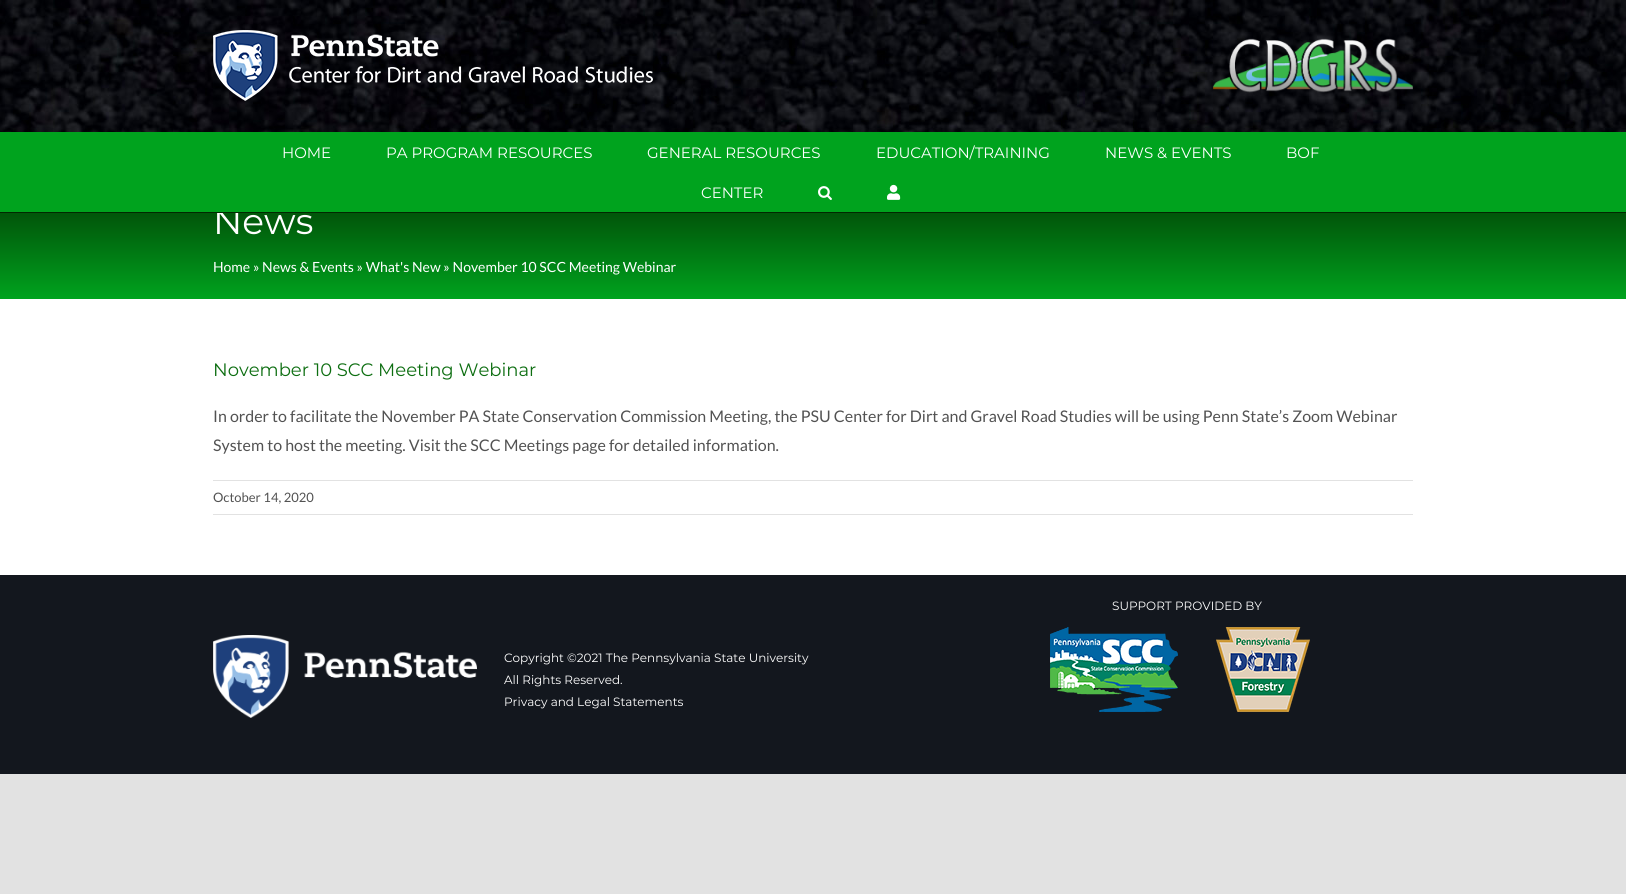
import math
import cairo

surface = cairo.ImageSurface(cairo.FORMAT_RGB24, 1626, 894)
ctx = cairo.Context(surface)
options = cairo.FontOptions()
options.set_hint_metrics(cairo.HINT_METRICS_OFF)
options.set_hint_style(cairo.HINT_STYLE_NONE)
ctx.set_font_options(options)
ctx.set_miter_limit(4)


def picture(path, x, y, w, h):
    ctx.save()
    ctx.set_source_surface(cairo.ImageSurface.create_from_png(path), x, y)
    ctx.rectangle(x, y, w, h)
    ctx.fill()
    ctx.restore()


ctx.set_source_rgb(0.886, 0.886, 0.886)
ctx.paint()
ctx.set_source_rgb(1, 1, 1)
ctx.rectangle(0, 299, 1626, 276)
ctx.fill()
picture("img1.png", 0, 0, 1626, 132)
picture("img2.png", 213, 30, 440, 71)
picture("img3.png", 1213, 38, 200, 55)
gradient = cairo.LinearGradient(813, 173, 813, 299)
gradient.add_color_stop_rgba(0, 0.004, 0.192, 0, 1)
gradient.add_color_stop_rgba(1, 0, 0.639, 0.118, 1)
ctx.set_source(gradient)
ctx.rectangle(0, 213, 1626, 86)
ctx.fill()
ctx.select_font_face("Montserrat")
ctx.set_font_size(36)
ctx.set_source_rgb(1, 1, 1)
ctx.move_to(213, 234)
ctx.show_text("News")
ctx.set_source_rgb(0, 0.639, 0.118)
ctx.rectangle(0, 132, 1626, 80)
ctx.fill()
ctx.set_source_rgb(0.004, 0.157, 0)
ctx.rectangle(0, 212, 1626, 1)
ctx.fill()
ctx.set_font_size(15)
ctx.set_source_rgb(1, 1, 1)
ctx.move_to(282, 158)
ctx.show_text("HOME")
ctx.move_to(386, 158)
ctx.show_text("PA PROGRAM RESOURCES")
ctx.move_to(647, 158)
ctx.show_text("GENERAL RESOURCES")
ctx.move_to(876, 158)
ctx.show_text("EDUCATION/TRAINING")
ctx.move_to(1105, 158)
ctx.show_text("NEWS & EVENTS")
ctx.move_to(1286, 158)
ctx.show_text("BOF")
ctx.move_to(701, 198)
ctx.show_text("CENTER")
picture("img4.png", 818, 186, 14, 14)
picture("img5.png", 887, 184, 14, 16)
ctx.select_font_face("Lato")
ctx.set_font_size(14)
ctx.move_to(213, 272)
ctx.show_text("Home » News & Events » What's New » November 10 SCC Meeting Webinar")
ctx.select_font_face("Montserrat")
ctx.set_font_size(18)
ctx.set_source_rgb(0.051, 0.431, 0.067)
ctx.move_to(213, 376)
ctx.show_text("November 10 SCC Meeting Webinar")
ctx.select_font_face("Lato")
ctx.set_font_size(16)
ctx.set_source_rgb(0.322, 0.322, 0.322)
ctx.move_to(213, 422)
ctx.show_text("In order to facilitate the November PA State Conservation Commission Meeting, the PSU Center for Dirt and Gravel Road Studies will be using Penn State’s Zoom Webinar")
ctx.move_to(213, 451)
ctx.show_text("System to host the meeting. Visit the SCC Meetings page for detailed information.")
ctx.set_source_rgb(0.886, 0.886, 0.886)
ctx.rectangle(213, 480, 1200, 1)
ctx.fill()
ctx.rectangle(213, 514, 1200, 1)
ctx.fill()
ctx.set_font_size(13)
ctx.set_source_rgb(0.322, 0.322, 0.322)
ctx.move_to(213, 502)
ctx.show_text("October 14, 2020")
ctx.set_source_rgb(0.078, 0.09, 0.118)
ctx.rectangle(0, 575, 1626, 199)
ctx.fill()
ctx.select_font_face("Montserrat")
ctx.set_font_size(12)
ctx.set_source_rgb(1, 1, 1)
ctx.move_to(1112, 610)
ctx.show_text("SUPPORT PROVIDED BY")
picture("img6.png", 1050, 627, 128, 85)
picture("img7.png", 1216, 627, 94, 85)
picture("img8.png", 213, 635, 264, 83)
ctx.move_to(504, 662)
ctx.show_text("Copyright ©2021 The Pennsylvania State University")
ctx.move_to(504, 684)
ctx.show_text("All Rights Reserved.")
ctx.move_to(504, 706)
ctx.show_text("Privacy and Legal Statements")
surface.write_to_png("page.png")
